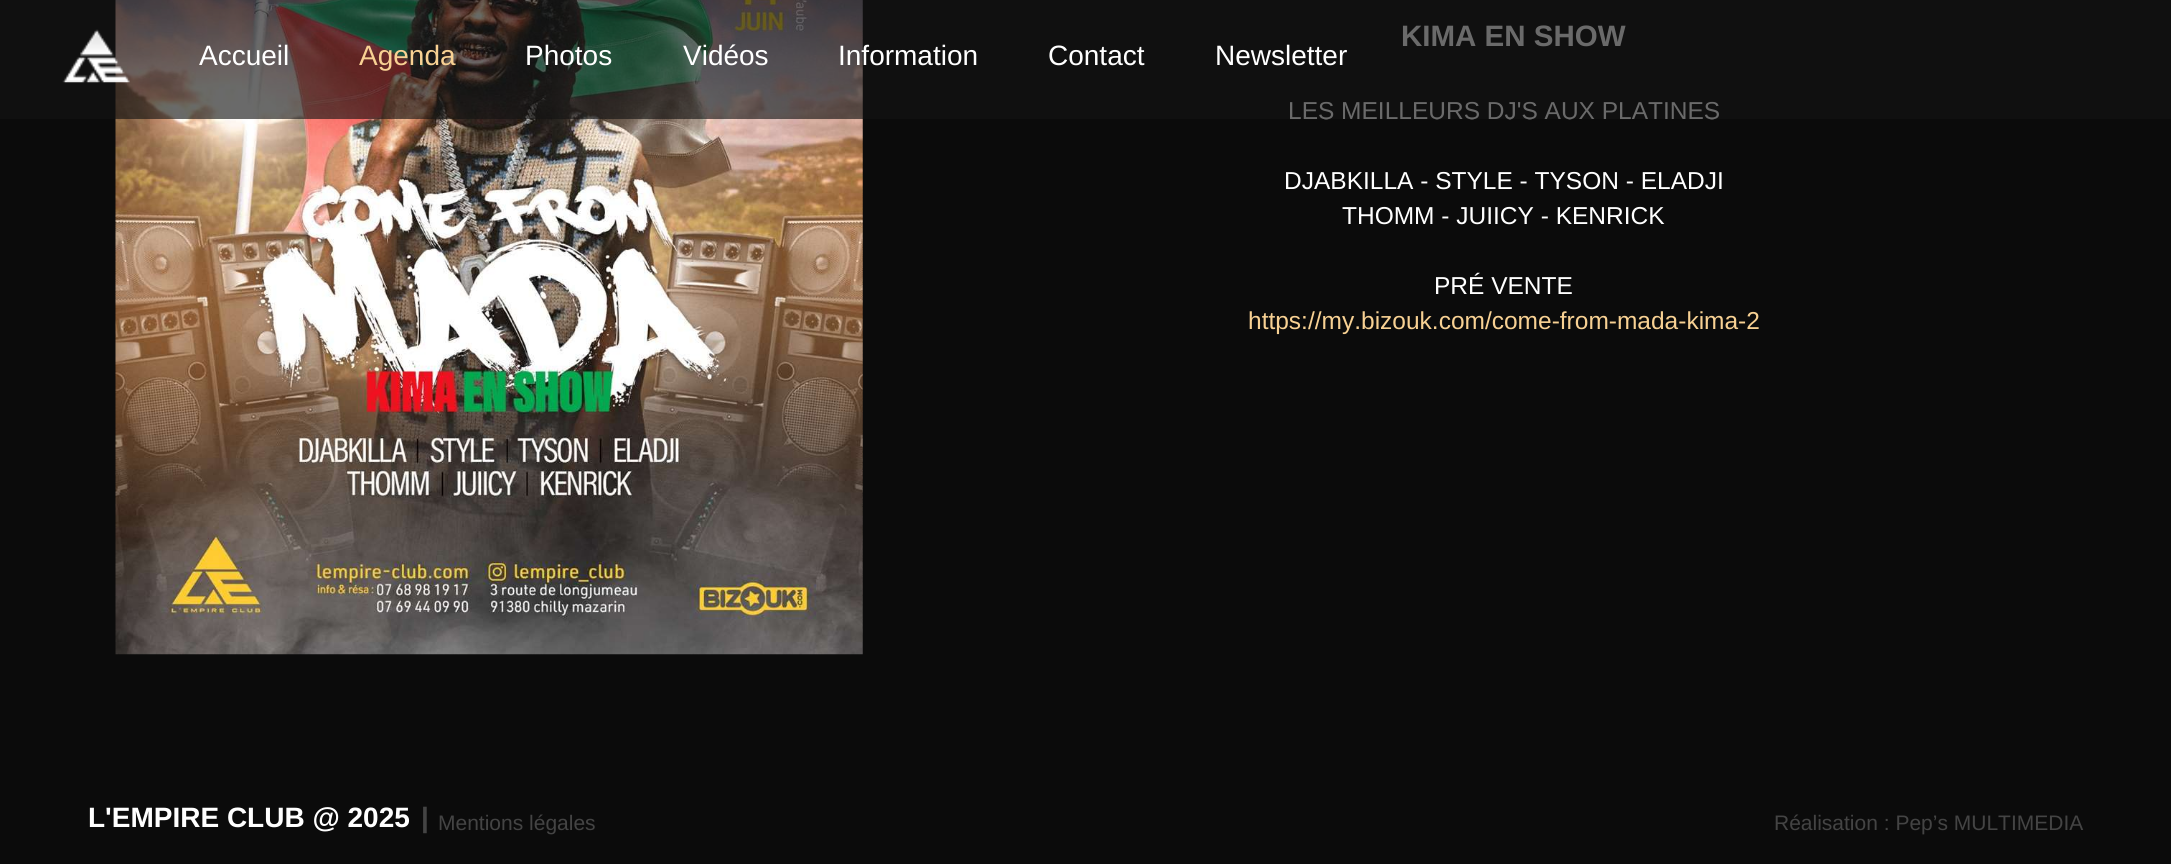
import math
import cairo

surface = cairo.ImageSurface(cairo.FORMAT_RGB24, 2171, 864)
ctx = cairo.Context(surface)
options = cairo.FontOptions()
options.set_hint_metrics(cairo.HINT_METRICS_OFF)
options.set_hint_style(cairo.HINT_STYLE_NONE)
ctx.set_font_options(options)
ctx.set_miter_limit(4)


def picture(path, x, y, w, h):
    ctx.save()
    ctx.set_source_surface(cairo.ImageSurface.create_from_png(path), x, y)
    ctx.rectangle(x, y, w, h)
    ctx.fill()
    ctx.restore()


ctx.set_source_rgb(0.043, 0.043, 0.043)
ctx.paint()
picture("img2.png", 115, 0, 748, 655)
ctx.select_font_face("Liberation Sans", cairo.FONT_SLANT_NORMAL, cairo.FONT_WEIGHT_BOLD)
ctx.set_font_size(29.5)
ctx.set_source_rgb(1, 1, 1)
ctx.move_to(1401, 46)
ctx.show_text("KIMA EN SHOW")
ctx.select_font_face("Liberation Sans")
ctx.set_font_size(24.5)
ctx.move_to(1288, 119)
ctx.show_text("LES MEILLEURS DJ'S AUX PLATINES")
ctx.set_source_rgba(0.075, 0.075, 0.075, 0.63)
ctx.rectangle(0, 0, 2171, 119)
ctx.fill()
picture("img1.png", 62, 29, 68, 54)
ctx.set_font_size(28)
ctx.set_source_rgb(1, 1, 1)
ctx.move_to(199, 65)
ctx.show_text("Accueil")
ctx.set_source_rgb(0.969, 0.82, 0.576)
ctx.move_to(359, 65)
ctx.show_text("Agenda")
ctx.set_source_rgb(1, 1, 1)
ctx.move_to(525, 65)
ctx.show_text("Photos")
ctx.move_to(683, 65)
ctx.show_text("Vidéos")
ctx.move_to(838, 65)
ctx.show_text("Information")
ctx.move_to(1048, 65)
ctx.show_text("Contact")
ctx.move_to(1215, 65)
ctx.show_text("Newsletter")
ctx.set_font_size(24.5)
ctx.move_to(1284, 189)
ctx.show_text("DJABKILLA - STYLE - TYSON - ELADJI")
ctx.move_to(1342, 224)
ctx.show_text("THOMM - JUIICY - KENRICK")
ctx.move_to(1434, 294)
ctx.show_text("PRÉ VENTE")
ctx.set_source_rgb(0.969, 0.82, 0.576)
ctx.move_to(1248, 329)
ctx.show_text("https://my.bizouk.com/come-from-mada-kima-2")
ctx.select_font_face("Liberation Sans", cairo.FONT_SLANT_NORMAL, cairo.FONT_WEIGHT_BOLD)
ctx.set_font_size(28)
ctx.set_source_rgb(1, 1, 1)
ctx.move_to(88, 827)
ctx.show_text("L'EMPIRE CLUB @ 2025")
ctx.set_source_rgb(0.267, 0.267, 0.267)
ctx.move_to(421, 827)
ctx.show_text("|")
ctx.select_font_face("Liberation Sans")
ctx.set_font_size(21)
ctx.move_to(438, 830)
ctx.show_text("Mentions légales")
ctx.move_to(1774, 830)
ctx.show_text("Réalisation : Pep’s MULTIMEDIA")
surface.write_to_png("page.png")
